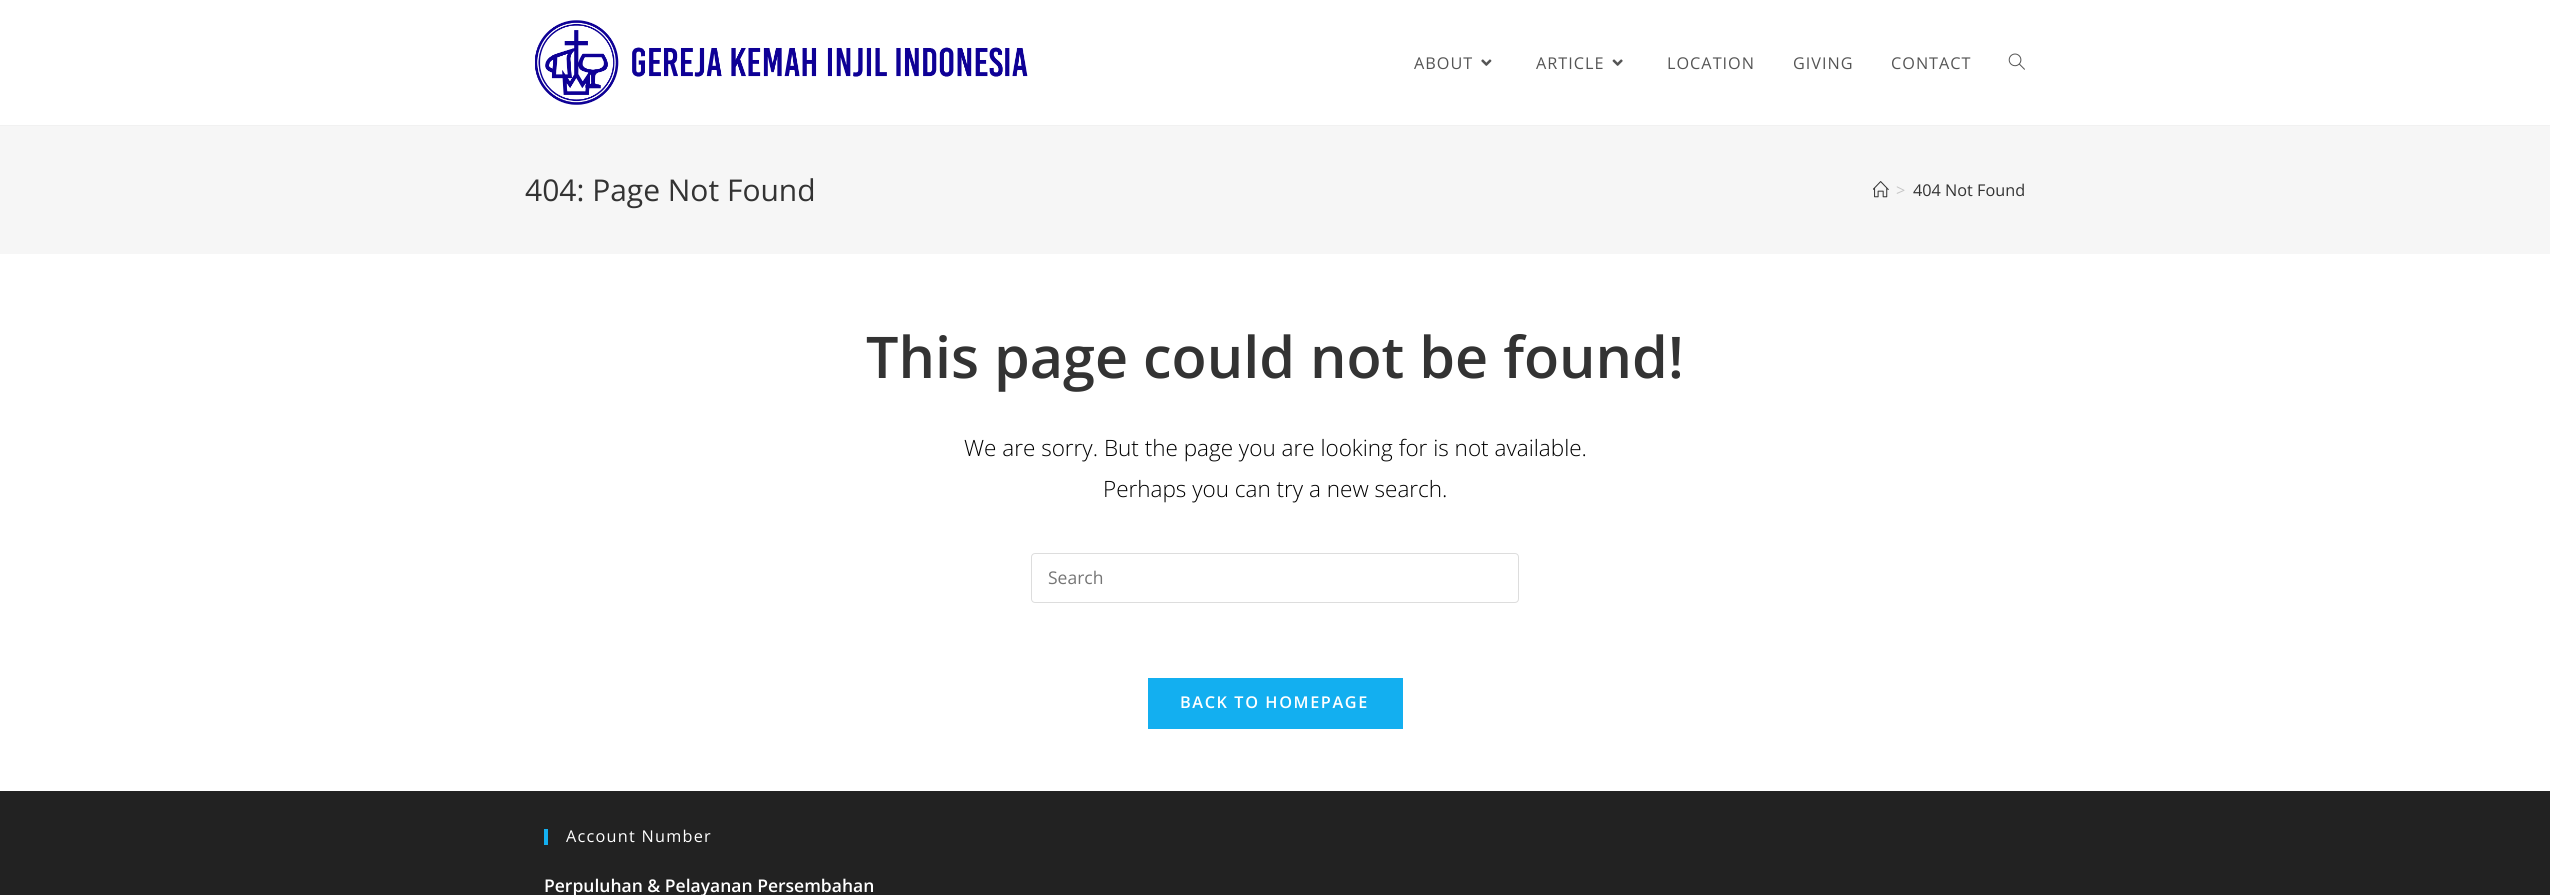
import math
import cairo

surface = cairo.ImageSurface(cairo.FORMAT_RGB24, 2550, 895)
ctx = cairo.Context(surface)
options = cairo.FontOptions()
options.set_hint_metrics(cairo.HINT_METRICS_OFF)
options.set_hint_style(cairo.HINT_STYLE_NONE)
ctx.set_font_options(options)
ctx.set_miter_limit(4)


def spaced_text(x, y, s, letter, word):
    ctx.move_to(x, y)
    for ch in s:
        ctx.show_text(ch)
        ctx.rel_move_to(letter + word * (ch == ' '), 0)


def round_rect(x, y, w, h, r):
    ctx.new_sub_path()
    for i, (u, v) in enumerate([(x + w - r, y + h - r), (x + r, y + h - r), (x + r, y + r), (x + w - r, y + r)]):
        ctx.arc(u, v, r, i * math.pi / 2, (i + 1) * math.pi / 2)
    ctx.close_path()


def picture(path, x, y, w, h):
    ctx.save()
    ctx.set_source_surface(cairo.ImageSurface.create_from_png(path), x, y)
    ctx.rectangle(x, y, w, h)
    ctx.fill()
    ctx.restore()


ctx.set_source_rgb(1, 1, 1)
ctx.paint()
ctx.set_source_rgb(0.945, 0.945, 0.945)
ctx.rectangle(0, 125, 2550, 1)
ctx.fill()
picture("img1.png", 535, 20, 493, 85)
ctx.select_font_face("Open Sans")
ctx.set_font_size(16.25)
ctx.set_source_rgb(0.333, 0.333, 0.333)
spaced_text(1414, 69, "ABOUT", 1, 0)
picture("img2.png", 1481, 59, 11, 7)
spaced_text(1536, 69, "ARTICLE", 1, 0)
picture("img3.png", 1612, 59, 11, 7)
spaced_text(1667, 69, "LOCATION", 1, 0)
spaced_text(1793, 69, "GIVING", 1, 0)
spaced_text(1891, 69, "CONTACT", 1, 0)
picture("img4.png", 2008, 53, 17, 17)
ctx.set_source_rgb(0.961, 0.961, 0.961)
ctx.rectangle(0, 126, 2550, 128)
ctx.fill()
ctx.set_font_size(30)
ctx.set_source_rgb(0.2, 0.2, 0.2)
ctx.move_to(525, 201)
ctx.show_text("404: Page Not Found")
picture("img5.png", 1873, 181, 16, 17)
ctx.set_font_size(16.25)
ctx.set_source_rgb(0.776, 0.776, 0.776)
ctx.move_to(1896, 196)
ctx.show_text(">")
ctx.set_source_rgb(0.2, 0.2, 0.2)
ctx.move_to(1913, 196)
ctx.show_text("404 Not Found")
ctx.select_font_face("Open Sans SemiBold")
ctx.set_font_size(57.5)
ctx.move_to(866, 378)
ctx.show_text("This page could not be found!")
ctx.select_font_face("Open Sans Light")
ctx.set_font_size(22.5)
ctx.set_source_rgb(0, 0, 0)
ctx.move_to(964, 456)
ctx.show_text("We are sorry. But the page you are looking for is not available.")
ctx.move_to(1103, 497)
ctx.show_text("Perhaps you can try a new search.")
round_rect(1031.5, 553.5, 487, 49, 3.5)
ctx.set_source_rgb(0.867, 0.867, 0.867)
ctx.set_line_width(1)
ctx.stroke()
ctx.select_font_face("Open Sans")
ctx.set_font_size(17.5)
ctx.set_source_rgb(0.459, 0.459, 0.459)
ctx.move_to(1048, 584)
ctx.show_text("Search")
ctx.set_source_rgb(0.075, 0.686, 0.941)
ctx.rectangle(1148, 678, 255, 51)
ctx.fill()
ctx.select_font_face("Open Sans SemiBold")
ctx.set_font_size(16.25)
ctx.set_source_rgb(1, 1, 1)
spaced_text(1180, 708, "BACK TO HOMEPAGE", 1.6, 0)
ctx.set_source_rgb(0.133, 0.133, 0.133)
ctx.rectangle(0, 791, 2550, 104)
ctx.fill()
ctx.set_source_rgb(0.075, 0.686, 0.941)
ctx.rectangle(544, 829, 4, 16)
ctx.fill()
ctx.select_font_face("Open Sans")
ctx.set_source_rgb(1, 1, 1)
spaced_text(566, 842, "Account Number", 1.25, 0)
ctx.select_font_face("Open Sans SemiBold")
ctx.set_font_size(17.5)
ctx.move_to(544, 892)
ctx.show_text("Perpuluhan & Pelayanan Persembahan")
surface.write_to_png("page.png")
